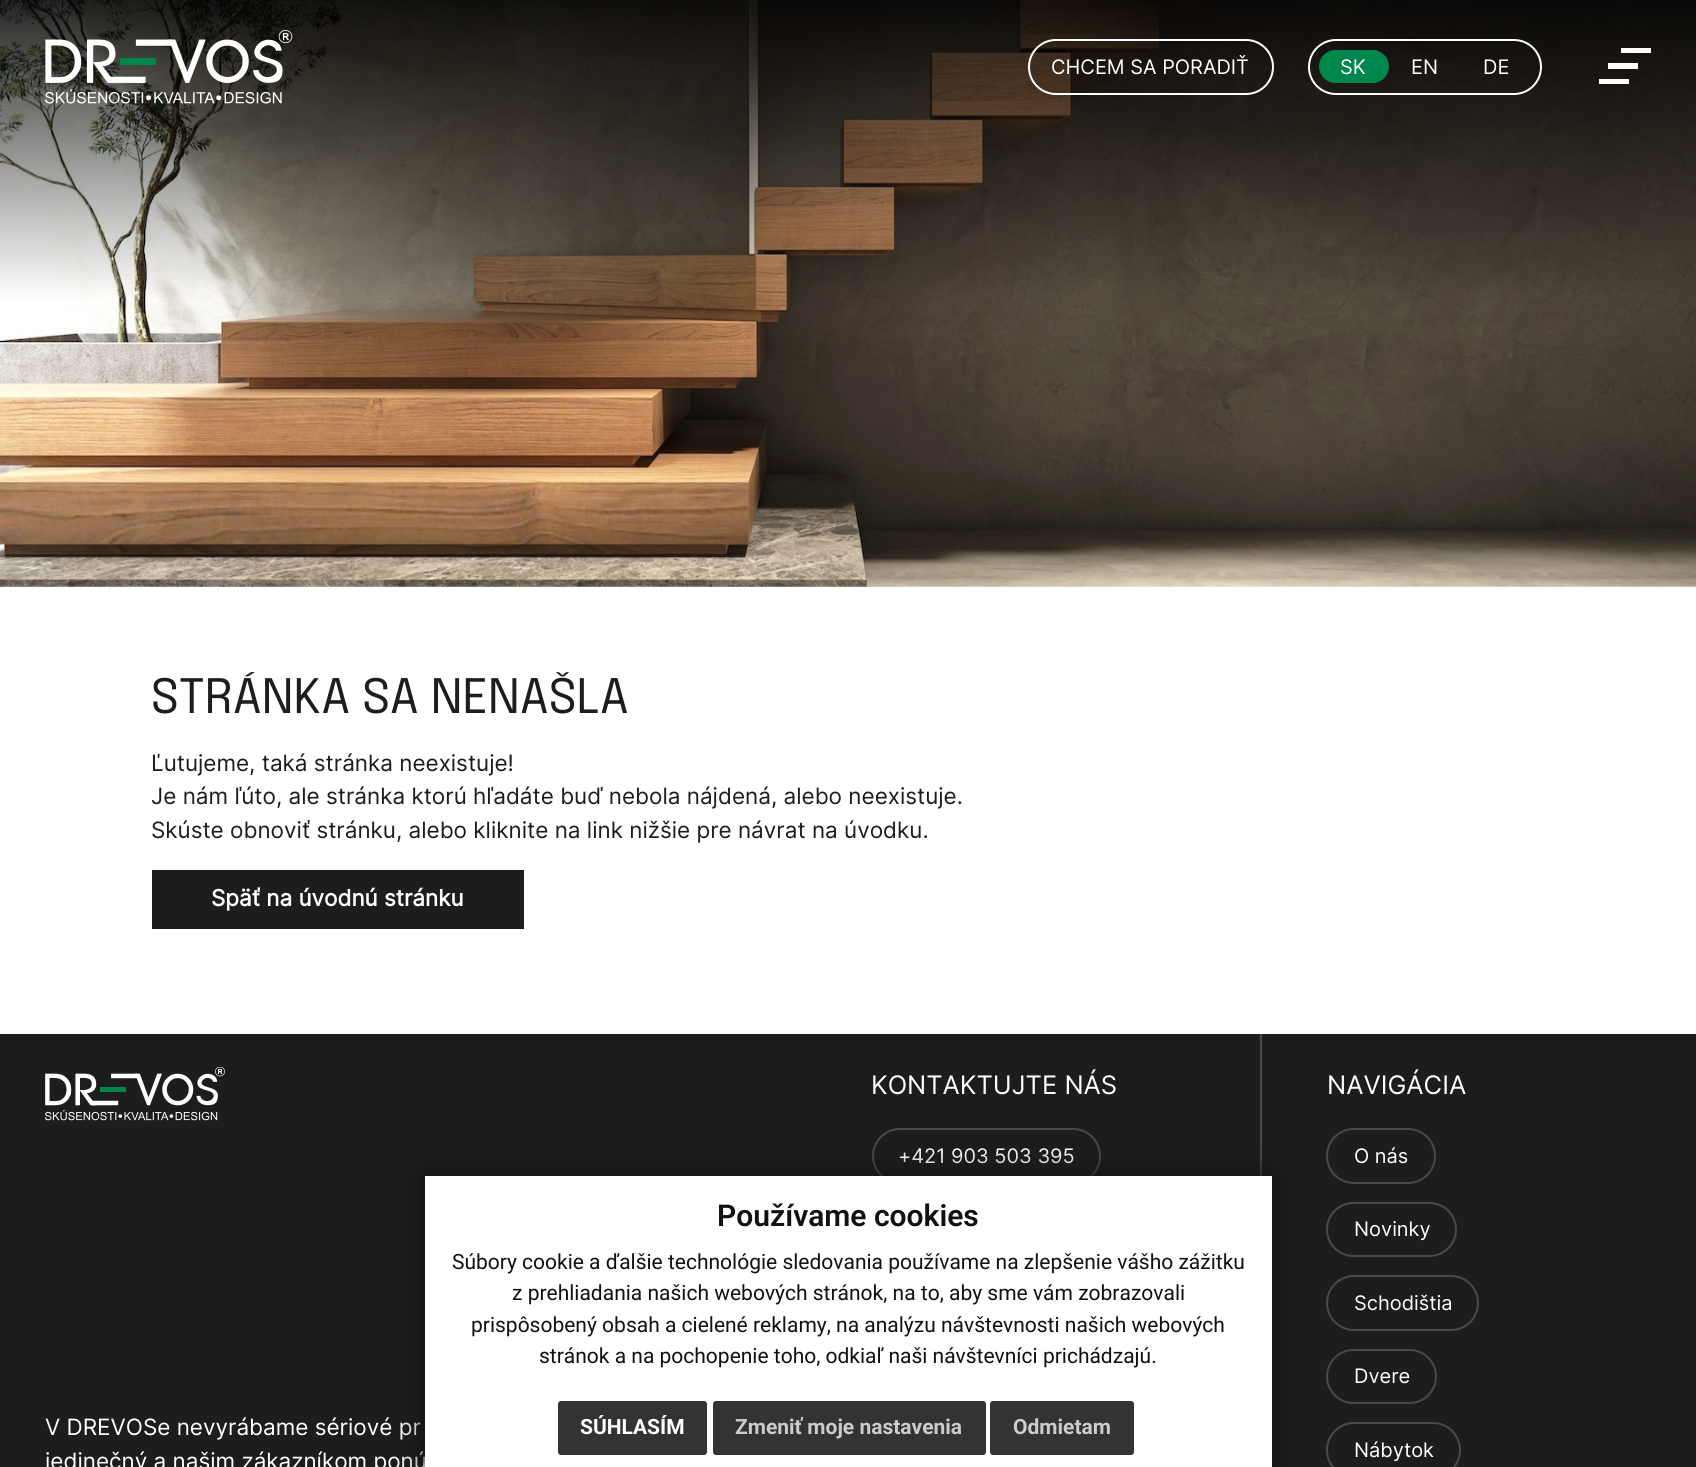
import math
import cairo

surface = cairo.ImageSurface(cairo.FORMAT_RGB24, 1696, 1467)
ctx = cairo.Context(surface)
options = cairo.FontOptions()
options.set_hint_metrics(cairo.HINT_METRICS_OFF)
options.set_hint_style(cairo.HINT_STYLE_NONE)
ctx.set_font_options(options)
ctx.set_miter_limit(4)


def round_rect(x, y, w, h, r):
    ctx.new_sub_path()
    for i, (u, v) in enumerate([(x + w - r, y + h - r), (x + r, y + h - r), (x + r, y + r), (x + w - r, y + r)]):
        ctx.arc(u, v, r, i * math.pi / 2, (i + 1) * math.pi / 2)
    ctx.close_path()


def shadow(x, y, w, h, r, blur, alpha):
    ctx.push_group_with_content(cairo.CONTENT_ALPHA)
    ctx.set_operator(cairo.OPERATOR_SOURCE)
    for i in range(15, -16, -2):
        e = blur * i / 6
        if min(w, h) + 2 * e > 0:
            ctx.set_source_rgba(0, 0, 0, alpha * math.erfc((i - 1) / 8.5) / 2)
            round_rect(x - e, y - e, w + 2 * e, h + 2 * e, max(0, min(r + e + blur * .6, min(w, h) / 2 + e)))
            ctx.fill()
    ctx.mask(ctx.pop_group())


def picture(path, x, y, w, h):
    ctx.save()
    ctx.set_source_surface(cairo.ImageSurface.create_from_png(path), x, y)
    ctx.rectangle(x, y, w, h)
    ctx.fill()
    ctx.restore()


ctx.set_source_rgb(1, 1, 1)
ctx.paint()
picture("img1.png", 0, 0, 1696, 587)
picture("img2.png", 45, 30, 248, 74)
round_rect(1029, 40, 244, 54, 27)
ctx.set_source_rgb(1, 1, 1)
ctx.stroke()
ctx.select_font_face("Inter")
ctx.set_font_size(20)
ctx.move_to(1051, 74)
ctx.show_text("CHCEM SA PORADIŤ")
round_rect(1309, 40, 232, 54, 27)
ctx.stroke()
ctx.set_source_rgb(0, 0.529, 0.302)
round_rect(1319, 50, 70, 33, 16.5)
ctx.fill()
ctx.set_source_rgb(1, 1, 1)
ctx.move_to(1340, 74)
ctx.show_text("SK")
ctx.move_to(1411, 74)
ctx.show_text("EN")
ctx.move_to(1483, 74)
ctx.show_text("DE")
ctx.new_path()
ctx.move_to(1621, 48)
ctx.line_to(1651, 48)
ctx.line_to(1651, 53)
ctx.line_to(1621, 53)
ctx.close_path()
ctx.move_to(1599, 79)
ctx.line_to(1629, 79)
ctx.line_to(1629, 84)
ctx.line_to(1599, 84)
ctx.close_path()
ctx.move_to(1608, 63)
ctx.line_to(1638, 63)
ctx.line_to(1638, 69)
ctx.line_to(1608, 69)
ctx.close_path()
ctx.fill()
ctx.select_font_face("Epilogue")
ctx.set_font_size(47.25)
ctx.set_source_rgb(0.114, 0.114, 0.114)
ctx.move_to(151, 713)
ctx.show_text("STRÁNKA SA NENAŠLA")
ctx.select_font_face("Inter")
ctx.set_font_size(22.5)
ctx.move_to(151, 771)
ctx.show_text("Ľutujeme, taká stránka neexistuje!")
ctx.move_to(151, 804)
ctx.show_text("Je nám ľúto, ale stránka ktorú hľadáte buď nebola nájdená, alebo neexistuje.")
ctx.move_to(151, 838)
ctx.show_text("Skúste obnoviť stránku, alebo kliknite na link nižšie pre návrat na úvodku.")
ctx.rectangle(152, 870, 372, 59)
ctx.fill()
ctx.select_font_face("Inter", cairo.FONT_SLANT_NORMAL, cairo.FONT_WEIGHT_BOLD)
ctx.set_source_rgb(1, 1, 1)
ctx.move_to(211, 906)
ctx.show_text("Späť na úvodnú stránku")
ctx.set_source_rgb(0.114, 0.114, 0.114)
ctx.rectangle(0, 1034, 1696, 433)
ctx.fill()
picture("img3.png", 45, 1067, 180, 54)
ctx.select_font_face("Inter")
ctx.set_source_rgb(1, 1, 1)
ctx.move_to(45, 1435)
ctx.show_text("V DREVOSe nevyrábame sériové pr")
ctx.move_to(45, 1469)
ctx.show_text("jedinečný a našim zákazníkom ponú")
ctx.set_source_rgb(0.286, 0.286, 0.286)
ctx.rectangle(1260, 1034, 2, 142)
ctx.fill()
ctx.set_font_size(25.5)
ctx.set_source_rgb(1, 1, 1)
ctx.move_to(871, 1094)
ctx.show_text("KONTAKTUJTE NÁS")
round_rect(873, 1129, 227, 54, 27)
ctx.set_source_rgb(0.286, 0.286, 0.286)
ctx.stroke()
ctx.set_font_size(20)
ctx.set_source_rgb(1, 1, 1)
ctx.move_to(898, 1163)
ctx.show_text("+421 903 503 395")
ctx.set_font_size(25.5)
ctx.move_to(1327, 1094)
ctx.show_text("NAVIGÁCIA")
round_rect(1327, 1129, 108, 54, 27)
ctx.set_source_rgb(0.286, 0.286, 0.286)
ctx.stroke()
ctx.set_font_size(20)
ctx.set_source_rgb(1, 1, 1)
ctx.move_to(1354, 1163)
ctx.show_text("O nás")
round_rect(1327, 1203, 129, 53, 26.5)
ctx.set_source_rgb(0.286, 0.286, 0.286)
ctx.stroke()
ctx.set_source_rgb(1, 1, 1)
ctx.move_to(1354, 1236)
ctx.show_text("Novinky")
round_rect(1327, 1276, 151, 54, 27)
ctx.set_source_rgb(0.286, 0.286, 0.286)
ctx.stroke()
ctx.set_source_rgb(1, 1, 1)
ctx.move_to(1354, 1310)
ctx.show_text("Schodištia")
round_rect(1327, 1350, 109, 53, 26.5)
ctx.set_source_rgb(0.286, 0.286, 0.286)
ctx.stroke()
ctx.set_source_rgb(1, 1, 1)
ctx.move_to(1354, 1383)
ctx.show_text("Dvere")
round_rect(1327, 1423, 133, 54, 27)
ctx.set_source_rgb(0.286, 0.286, 0.286)
ctx.stroke()
ctx.set_source_rgb(1, 1, 1)
ctx.move_to(1354, 1457)
ctx.show_text("Nábytok")
ctx.set_source_rgb(0.067, 0.067, 0.067)
shadow(425, 1176, 847, 291, 0, 15, 1)
ctx.set_source_rgb(1, 1, 1)
ctx.rectangle(425, 1176, 847, 291)
ctx.fill()
ctx.select_font_face("Roboto SemiBold")
ctx.set_font_size(30)
ctx.set_source_rgb(0.067, 0.067, 0.067)
ctx.move_to(717, 1226)
ctx.show_text("Používame cookies")
ctx.select_font_face("Roboto")
ctx.set_font_size(21)
ctx.move_to(452, 1269)
ctx.show_text("Súbory cookie a ďalšie technológie sledovania používame na zlepšenie vášho zážitku")
ctx.move_to(512, 1300)
ctx.show_text("z prehliadania našich webových stránok, na to, aby sme vám zobrazovali")
ctx.move_to(471, 1332)
ctx.show_text("prispôsobený obsah a cielené reklamy, na analýzu návštevnosti našich webových")
ctx.move_to(539, 1363)
ctx.show_text("stránok a na pochopenie toho, odkiaľ naši návštevníci prichádzajú.")
ctx.set_source_rgb(0.2, 0.2, 0.2)
round_rect(558, 1401, 149, 54, 3)
ctx.fill()
ctx.select_font_face("Roboto", cairo.FONT_SLANT_NORMAL, cairo.FONT_WEIGHT_BOLD)
ctx.set_source_rgb(1, 1, 1)
ctx.move_to(580, 1434)
ctx.show_text("SÚHLASÍM")
ctx.set_source_rgb(0.2, 0.2, 0.2)
round_rect(713, 1401, 273, 54, 3)
ctx.fill()
ctx.set_source_rgb(0.8, 0.8, 0.8)
ctx.move_to(735, 1434)
ctx.show_text("Zmeniť moje nastavenia")
ctx.set_source_rgb(0.2, 0.2, 0.2)
round_rect(990, 1401, 144, 54, 3)
ctx.fill()
ctx.set_source_rgb(0.8, 0.8, 0.8)
ctx.move_to(1013, 1434)
ctx.show_text("Odmietam")
surface.write_to_png("page.png")
